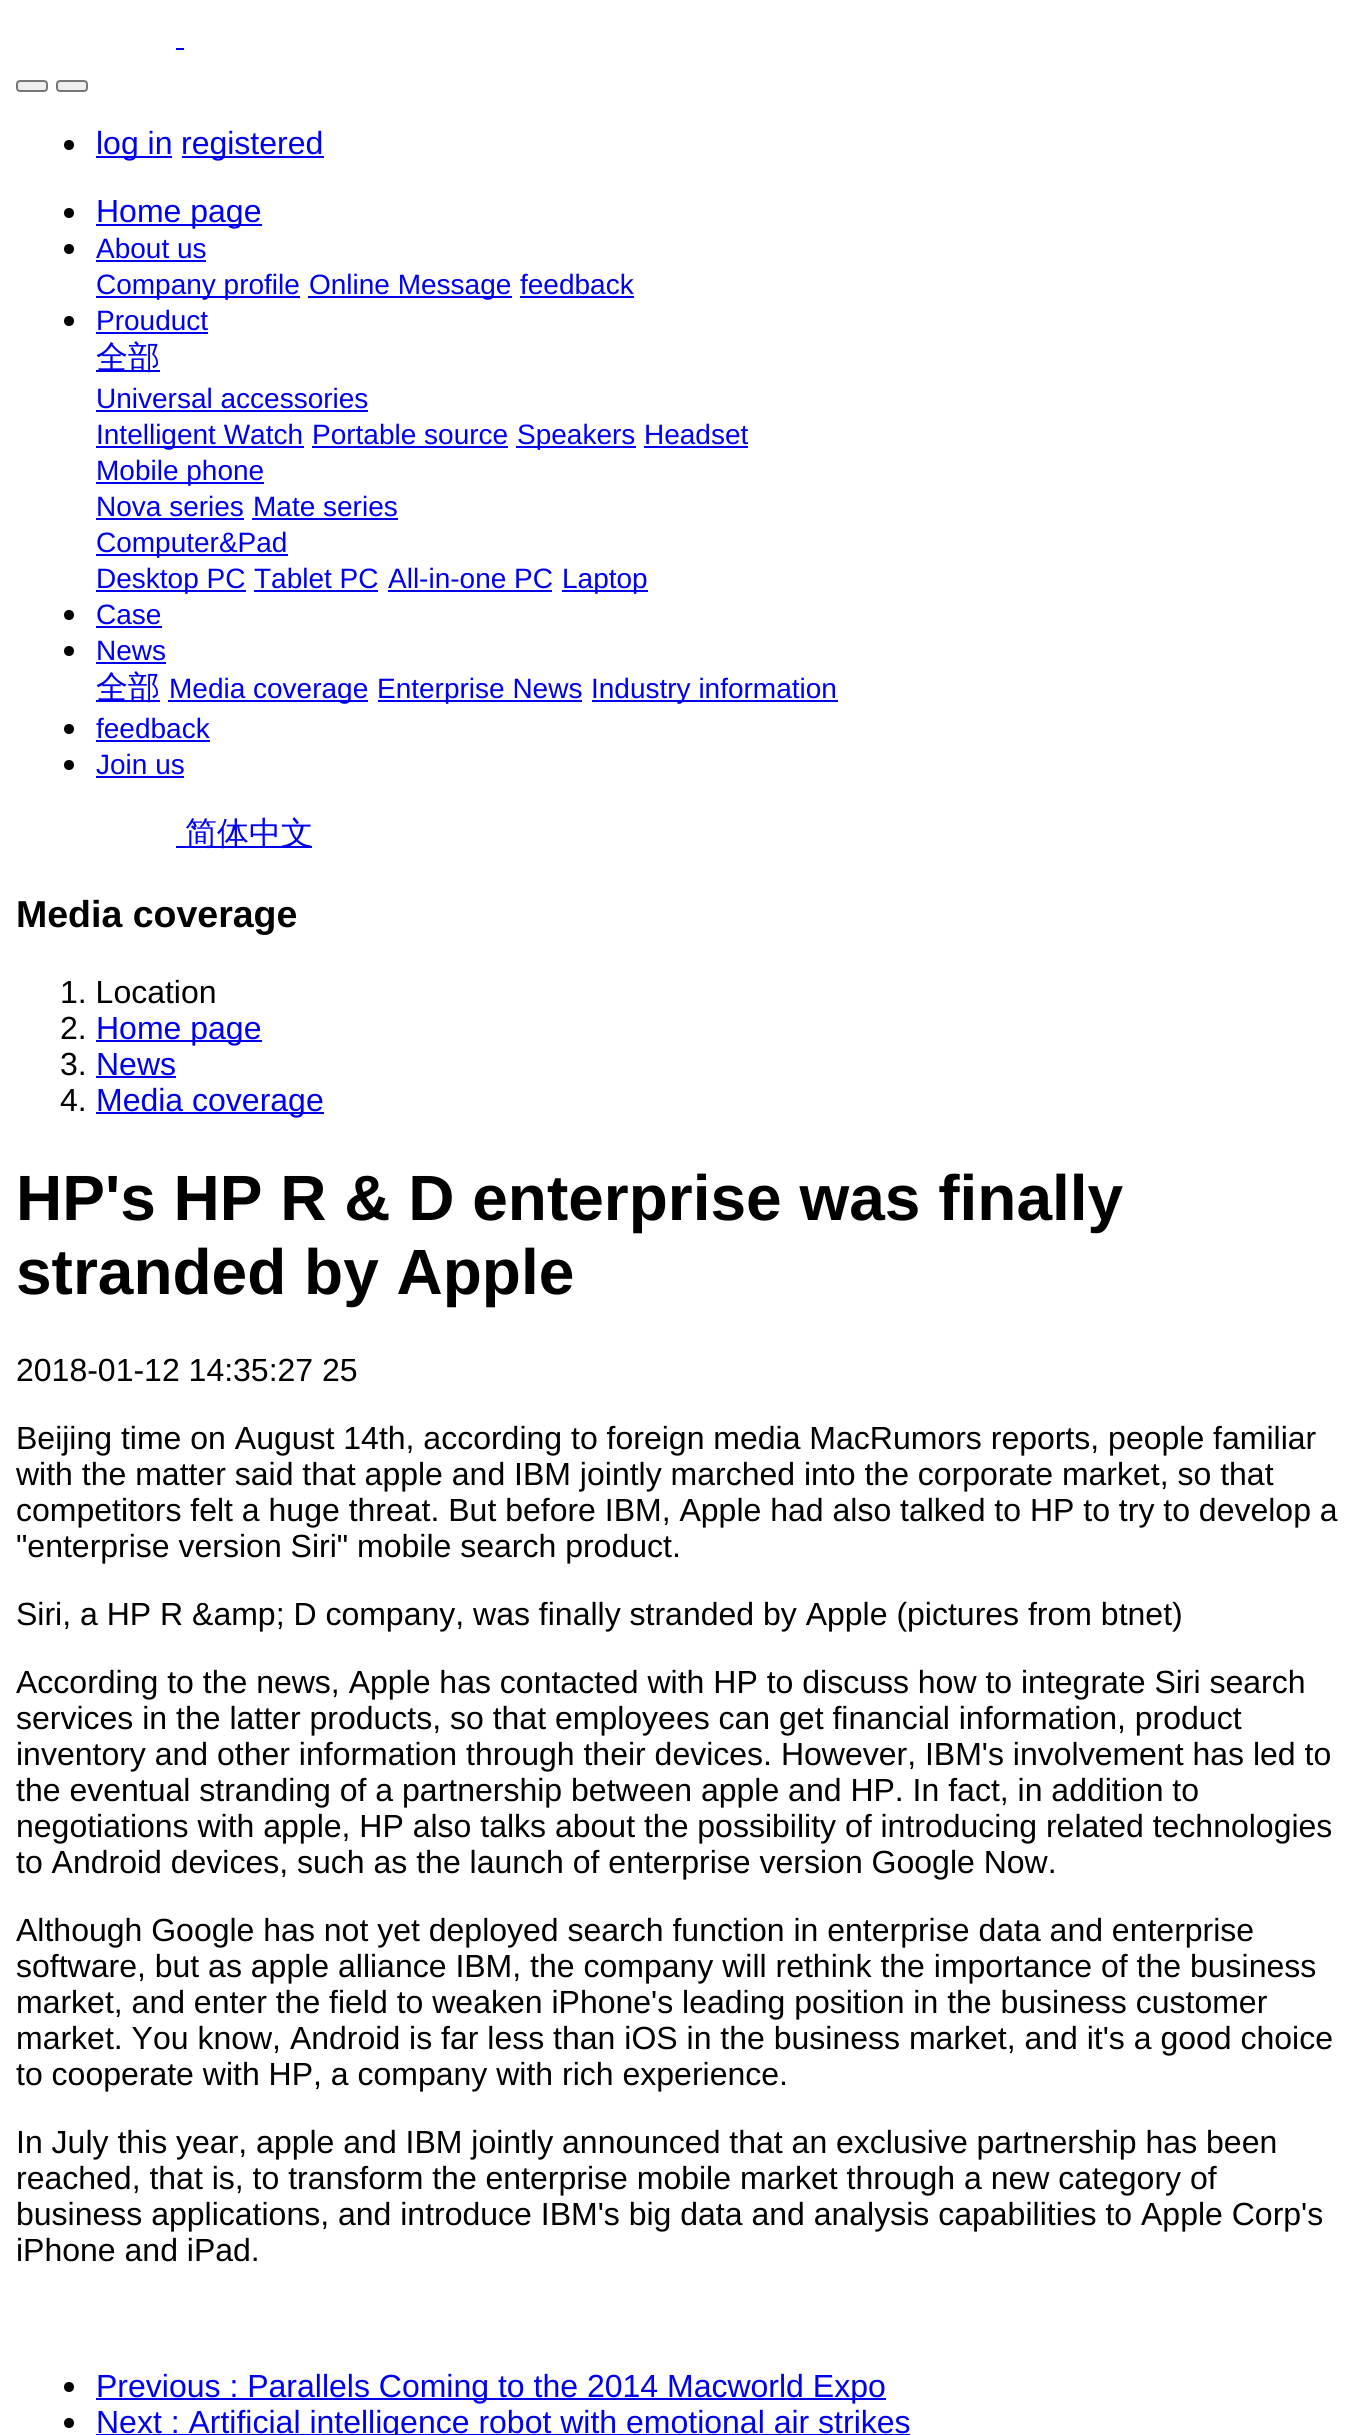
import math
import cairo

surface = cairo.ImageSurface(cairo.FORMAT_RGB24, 1366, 2435)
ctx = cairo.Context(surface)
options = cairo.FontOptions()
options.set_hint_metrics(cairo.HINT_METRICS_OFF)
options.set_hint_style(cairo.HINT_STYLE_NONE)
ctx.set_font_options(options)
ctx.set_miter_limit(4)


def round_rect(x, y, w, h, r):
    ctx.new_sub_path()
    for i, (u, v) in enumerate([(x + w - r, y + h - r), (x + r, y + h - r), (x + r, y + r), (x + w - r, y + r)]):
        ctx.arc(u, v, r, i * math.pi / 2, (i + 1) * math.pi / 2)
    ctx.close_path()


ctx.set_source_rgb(1, 1, 1)
ctx.paint()
ctx.set_source_rgb(0, 0, 0.933)
ctx.rectangle(176, 48, 8, 2)
ctx.fill()
ctx.set_source_rgb(0.937, 0.937, 0.937)
round_rect(17, 81, 30, 10, 3)
ctx.fill_preserve()
ctx.set_source_rgb(0.463, 0.463, 0.463)
ctx.stroke()
ctx.set_source_rgb(0.937, 0.937, 0.937)
round_rect(57, 81, 30, 10, 3)
ctx.fill_preserve()
ctx.set_source_rgb(0.463, 0.463, 0.463)
ctx.stroke()
ctx.set_source_rgb(0, 0, 0)
ctx.arc(69, 145, 5, 0, 2 * math.pi)
ctx.fill()
ctx.set_source_rgb(0, 0, 0.933)
ctx.rectangle(96, 156, 76, 2)
ctx.fill()
ctx.select_font_face("Liberation Sans")
ctx.set_font_size(32)
ctx.move_to(96, 154)
ctx.show_text("log in")
ctx.rectangle(182, 156, 142, 2)
ctx.fill()
ctx.move_to(181, 154)
ctx.show_text("registered")
ctx.set_source_rgb(0, 0, 0)
ctx.new_path()
ctx.arc(69, 213, 5, 0, 2 * math.pi)
ctx.fill()
ctx.set_source_rgb(0, 0, 0.933)
ctx.rectangle(96, 224, 166, 2)
ctx.fill()
ctx.move_to(96, 222)
ctx.show_text("Home page")
ctx.set_source_rgb(0, 0, 0)
ctx.new_path()
ctx.arc(69, 249, 5, 0, 2 * math.pi)
ctx.fill()
ctx.set_font_size(28)
ctx.set_source_rgb(0, 0, 0.933)
ctx.move_to(96, 258)
ctx.show_text("About us")
ctx.rectangle(96, 260, 110, 2)
ctx.fill()
ctx.rectangle(96, 296, 204, 2)
ctx.fill()
ctx.move_to(96, 294)
ctx.show_text("Company profile")
ctx.rectangle(308, 296, 204, 2)
ctx.fill()
ctx.move_to(309, 294)
ctx.show_text("Online Message")
ctx.move_to(520, 294)
ctx.show_text("feedback")
ctx.rectangle(520, 296, 114, 2)
ctx.fill()
ctx.set_source_rgb(0, 0, 0)
ctx.arc(69, 321, 5, 0, 2 * math.pi)
ctx.fill()
ctx.set_source_rgb(0, 0, 0.933)
ctx.move_to(96, 330)
ctx.show_text("Prouduct")
ctx.rectangle(96, 332, 112, 2)
ctx.fill()
ctx.rectangle(96, 370, 64, 2)
ctx.fill()
ctx.select_font_face("WenQuanYi Zen Hei Medium")
ctx.set_font_size(32)
ctx.move_to(96, 368)
ctx.show_text("全部")
ctx.select_font_face("Liberation Sans")
ctx.set_font_size(28)
ctx.move_to(96, 408)
ctx.show_text("Universal accessories")
ctx.rectangle(96, 410, 272, 2)
ctx.fill()
ctx.rectangle(96, 446, 208, 2)
ctx.fill()
ctx.move_to(96, 444)
ctx.show_text("Intelligent Watch")
ctx.move_to(312, 444)
ctx.show_text("Portable source")
ctx.rectangle(312, 446, 196, 2)
ctx.fill()
ctx.rectangle(516, 446, 120, 2)
ctx.fill()
ctx.move_to(517, 444)
ctx.show_text("Speakers")
ctx.move_to(644, 444)
ctx.show_text("Headset")
ctx.rectangle(644, 446, 104, 2)
ctx.fill()
ctx.rectangle(96, 482, 168, 2)
ctx.fill()
ctx.move_to(96, 480)
ctx.show_text("Mobile phone")
ctx.move_to(96, 516)
ctx.show_text("Nova series")
ctx.rectangle(96, 518, 148, 2)
ctx.fill()
ctx.move_to(253, 516)
ctx.show_text("Mate series")
ctx.rectangle(252, 518, 146, 2)
ctx.fill()
ctx.rectangle(96, 554, 192, 2)
ctx.fill()
ctx.move_to(96, 552)
ctx.show_text("Computer&Pad")
ctx.rectangle(96, 590, 150, 2)
ctx.fill()
ctx.move_to(96, 588)
ctx.show_text("Desktop PC")
ctx.move_to(254, 588)
ctx.show_text("Tablet PC")
ctx.rectangle(254, 590, 124, 2)
ctx.fill()
ctx.move_to(388, 588)
ctx.show_text("All-in-one PC")
ctx.rectangle(388, 590, 164, 2)
ctx.fill()
ctx.rectangle(562, 590, 86, 2)
ctx.fill()
ctx.move_to(562, 588)
ctx.show_text("Laptop")
ctx.set_source_rgb(0, 0, 0)
ctx.new_path()
ctx.arc(69, 615, 5, 0, 2 * math.pi)
ctx.fill()
ctx.set_source_rgb(0, 0, 0.933)
ctx.move_to(96, 624)
ctx.show_text("Case")
ctx.rectangle(96, 626, 66, 2)
ctx.fill()
ctx.set_source_rgb(0, 0, 0)
ctx.arc(69, 651, 5, 0, 2 * math.pi)
ctx.fill()
ctx.set_source_rgb(0, 0, 0.933)
ctx.move_to(96, 660)
ctx.show_text("News")
ctx.rectangle(96, 662, 70, 2)
ctx.fill()
ctx.rectangle(96, 700, 64, 2)
ctx.fill()
ctx.select_font_face("WenQuanYi Zen Hei Medium")
ctx.set_font_size(32)
ctx.move_to(96, 698)
ctx.show_text("全部")
ctx.rectangle(168, 700, 200, 2)
ctx.fill()
ctx.select_font_face("Liberation Sans")
ctx.set_font_size(28)
ctx.move_to(169, 698)
ctx.show_text("Media coverage")
ctx.rectangle(378, 700, 204, 2)
ctx.fill()
ctx.move_to(377, 698)
ctx.show_text("Enterprise News")
ctx.rectangle(592, 700, 246, 2)
ctx.fill()
ctx.move_to(591, 698)
ctx.show_text("Industry information")
ctx.set_source_rgb(0, 0, 0)
ctx.new_path()
ctx.arc(69, 729, 5, 0, 2 * math.pi)
ctx.fill()
ctx.set_source_rgb(0, 0, 0.933)
ctx.move_to(96, 738)
ctx.show_text("feedback")
ctx.rectangle(96, 740, 114, 2)
ctx.fill()
ctx.set_source_rgb(0, 0, 0)
ctx.arc(69, 765, 5, 0, 2 * math.pi)
ctx.fill()
ctx.set_source_rgb(0, 0, 0.933)
ctx.move_to(96, 774)
ctx.show_text("Join us")
ctx.rectangle(96, 776, 88, 2)
ctx.fill()
ctx.rectangle(176, 846, 136, 2)
ctx.fill()
ctx.select_font_face("WenQuanYi Zen Hei Medium")
ctx.set_font_size(32)
ctx.move_to(185, 844)
ctx.show_text("简体中文")
ctx.select_font_face("Liberation Sans", cairo.FONT_SLANT_NORMAL, cairo.FONT_WEIGHT_BOLD)
ctx.set_font_size(37.5)
ctx.set_source_rgb(0, 0, 0)
ctx.move_to(16, 927)
ctx.show_text("Media coverage")
ctx.select_font_face("Liberation Sans")
ctx.set_font_size(32)
ctx.move_to(60, 1003)
ctx.show_text("1. Location")
ctx.move_to(60, 1039)
ctx.show_text("2.")
ctx.set_source_rgb(0, 0, 0.933)
ctx.rectangle(96, 1040, 166, 2)
ctx.fill()
ctx.move_to(96, 1039)
ctx.show_text("Home page")
ctx.set_source_rgb(0, 0, 0)
ctx.move_to(60, 1075)
ctx.show_text("3.")
ctx.set_source_rgb(0, 0, 0.933)
ctx.move_to(96, 1075)
ctx.show_text("News")
ctx.rectangle(96, 1076, 80, 2)
ctx.fill()
ctx.set_source_rgb(0, 0, 0)
ctx.move_to(60, 1111)
ctx.show_text("4.")
ctx.set_source_rgb(0, 0, 0.933)
ctx.rectangle(96, 1112, 228, 2)
ctx.fill()
ctx.move_to(96, 1111)
ctx.show_text("Media coverage")
ctx.select_font_face("Liberation Sans", cairo.FONT_SLANT_NORMAL, cairo.FONT_WEIGHT_BOLD)
ctx.set_font_size(64)
ctx.set_source_rgb(0, 0, 0)
ctx.move_to(16, 1220)
ctx.show_text("HP's HP R & D enterprise was finally")
ctx.move_to(16, 1294)
ctx.show_text("stranded by Apple")
ctx.select_font_face("Liberation Sans")
ctx.set_font_size(32)
ctx.move_to(16, 1381)
ctx.show_text("2018-01-12 14:35:27 25")
ctx.move_to(16, 1449)
ctx.show_text("Beijing time on August 14th, according to foreign media MacRumors reports, people familiar")
ctx.move_to(16, 1485)
ctx.show_text("with the matter said that apple and IBM jointly marched into the corporate market, so that")
ctx.move_to(16, 1521)
ctx.show_text("competitors felt a huge threat. But before IBM, Apple had also talked to HP to try to develop a")
ctx.move_to(16, 1557)
ctx.show_text("\"enterprise version Siri\" mobile search product.")
ctx.move_to(16, 1625)
ctx.show_text("Siri, a HP R &amp; D company, was finally stranded by Apple (pictures from btnet)")
ctx.move_to(16, 1693)
ctx.show_text("According to the news, Apple has contacted with HP to discuss how to integrate Siri search")
ctx.move_to(16, 1729)
ctx.show_text("services in the latter products, so that employees can get financial information, product")
ctx.move_to(16, 1765)
ctx.show_text("inventory and other information through their devices. However, IBM's involvement has led to")
ctx.move_to(16, 1801)
ctx.show_text("the eventual stranding of a partnership between apple and HP. In fact, in addition to")
ctx.move_to(16, 1837)
ctx.show_text("negotiations with apple, HP also talks about the possibility of introducing related technologies")
ctx.move_to(16, 1873)
ctx.show_text("to Android devices, such as the launch of enterprise version Google Now.")
ctx.move_to(16, 1941)
ctx.show_text("Although Google has not yet deployed search function in enterprise data and enterprise")
ctx.move_to(16, 1977)
ctx.show_text("software, but as apple alliance IBM, the company will rethink the importance of the business")
ctx.move_to(16, 2013)
ctx.show_text("market, and enter the field to weaken iPhone's leading position in the business customer")
ctx.move_to(16, 2049)
ctx.show_text("market. You know, Android is far less than iOS in the business market, and it's a good choice")
ctx.move_to(16, 2085)
ctx.show_text("to cooperate with HP, a company with rich experience.")
ctx.move_to(16, 2153)
ctx.show_text("In July this year, apple and IBM jointly announced that an exclusive partnership has been")
ctx.move_to(16, 2189)
ctx.show_text("reached, that is, to transform the enterprise mobile market through a new category of")
ctx.move_to(16, 2225)
ctx.show_text("business applications, and introduce IBM's big data and analysis capabilities to Apple Corp's")
ctx.move_to(16, 2261)
ctx.show_text("iPhone and iPad.")
ctx.new_path()
ctx.arc(69, 2387, 5, 0, 2 * math.pi)
ctx.fill()
ctx.set_source_rgb(0, 0, 0.933)
ctx.rectangle(96, 2398, 790, 2)
ctx.fill()
ctx.move_to(96, 2397)
ctx.show_text("Previous : Parallels Coming to the 2014 Macworld Expo")
ctx.set_source_rgb(0, 0, 0)
ctx.new_path()
ctx.arc(69, 2423, 5, 0, 2 * math.pi)
ctx.fill()
ctx.set_source_rgb(0, 0, 0.933)
ctx.rectangle(96, 2434, 814, 1)
ctx.fill()
ctx.move_to(96, 2433)
ctx.show_text("Next : Artificial intelligence robot with emotional air strikes")
surface.write_to_png("page.png")
